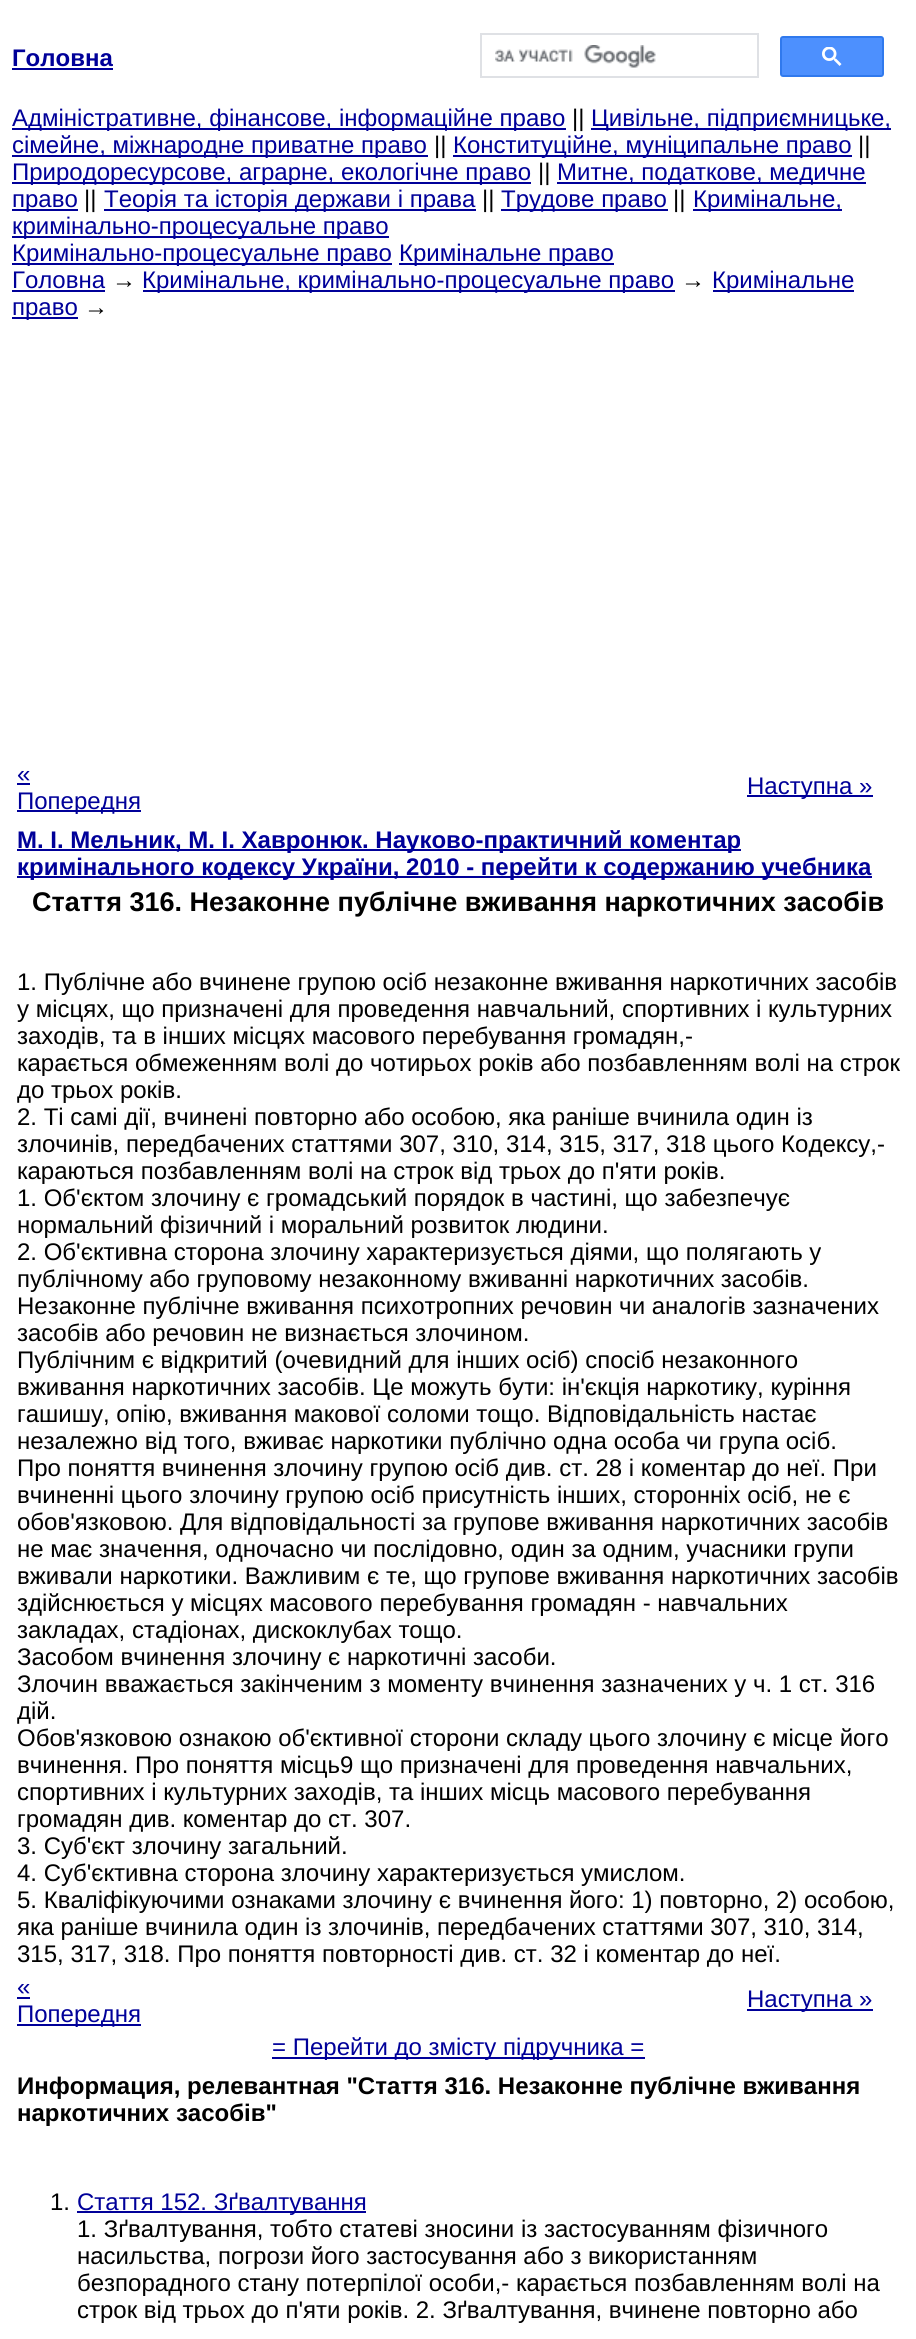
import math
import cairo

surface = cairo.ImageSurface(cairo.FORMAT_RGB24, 916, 2339)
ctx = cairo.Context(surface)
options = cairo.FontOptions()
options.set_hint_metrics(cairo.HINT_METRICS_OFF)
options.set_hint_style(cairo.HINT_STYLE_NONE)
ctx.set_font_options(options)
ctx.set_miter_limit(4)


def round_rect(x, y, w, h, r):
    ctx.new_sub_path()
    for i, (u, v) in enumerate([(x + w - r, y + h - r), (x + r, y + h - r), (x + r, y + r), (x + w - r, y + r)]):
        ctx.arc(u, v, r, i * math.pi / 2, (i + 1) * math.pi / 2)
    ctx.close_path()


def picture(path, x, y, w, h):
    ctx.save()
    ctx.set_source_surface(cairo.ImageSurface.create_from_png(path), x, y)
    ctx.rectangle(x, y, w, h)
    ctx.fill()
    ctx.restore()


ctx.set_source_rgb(1, 1, 1)
ctx.paint()
ctx.select_font_face("Liberation Sans", cairo.FONT_SLANT_NORMAL, cairo.FONT_WEIGHT_BOLD)
ctx.set_font_size(24)
ctx.set_source_rgb(0, 0, 0.6)
ctx.move_to(12, 66)
ctx.show_text("Головна")
ctx.rectangle(12, 68, 101, 2)
ctx.fill()
ctx.rectangle(481, 34, 277, 43)
ctx.set_source_rgb(0.875, 0.882, 0.898)
ctx.stroke()
picture("img1.png", 495, 45, 161, 23)
ctx.set_source_rgb(0.302, 0.565, 0.996)
round_rect(781, 37, 102, 39, 2)
ctx.fill_preserve()
ctx.set_source_rgb(0.188, 0.475, 0.929)
ctx.stroke()
picture("img2.png", 822, 47, 20, 19)
ctx.set_source_rgb(0, 0, 0.6)
ctx.rectangle(12, 128, 554, 2)
ctx.fill()
ctx.select_font_face("Liberation Sans")
ctx.move_to(12, 126)
ctx.show_text("Адміністративне, фінансове, інформаційне право")
ctx.set_source_rgb(0, 0, 0)
ctx.move_to(572, 126)
ctx.show_text("||")
ctx.set_source_rgb(0, 0, 0.6)
ctx.rectangle(591, 128, 300, 2)
ctx.fill()
ctx.move_to(591, 126)
ctx.show_text("Цивільне, підприємницьке,")
ctx.rectangle(12, 155, 416, 2)
ctx.fill()
ctx.move_to(12, 153)
ctx.show_text("сімейне, міжнародне приватне право")
ctx.set_source_rgb(0, 0, 0)
ctx.move_to(434, 153)
ctx.show_text("||")
ctx.set_source_rgb(0, 0, 0.6)
ctx.rectangle(453, 155, 399, 2)
ctx.fill()
ctx.move_to(453, 153)
ctx.show_text("Конституційне, муніципальне право")
ctx.set_source_rgb(0, 0, 0)
ctx.move_to(858, 153)
ctx.show_text("||")
ctx.set_source_rgb(0, 0, 0.6)
ctx.rectangle(12, 182, 519, 2)
ctx.fill()
ctx.move_to(12, 180)
ctx.show_text("Природоресурсове, аграрне, екологічне право")
ctx.set_source_rgb(0, 0, 0)
ctx.move_to(538, 180)
ctx.show_text("||")
ctx.set_source_rgb(0, 0, 0.6)
ctx.rectangle(557, 182, 309, 2)
ctx.fill()
ctx.move_to(557, 180)
ctx.show_text("Митне, податкове, медичне")
ctx.rectangle(12, 209, 66, 2)
ctx.fill()
ctx.move_to(12, 207)
ctx.show_text("право")
ctx.set_source_rgb(0, 0, 0)
ctx.move_to(84, 207)
ctx.show_text("||")
ctx.set_source_rgb(0, 0, 0.6)
ctx.rectangle(104, 209, 372, 2)
ctx.fill()
ctx.move_to(104, 207)
ctx.show_text("Теорія та історія держави і права")
ctx.set_source_rgb(0, 0, 0)
ctx.move_to(482, 207)
ctx.show_text("||")
ctx.set_source_rgb(0, 0, 0.6)
ctx.rectangle(501, 209, 167, 2)
ctx.fill()
ctx.move_to(501, 207)
ctx.show_text("Трудове право")
ctx.set_source_rgb(0, 0, 0)
ctx.move_to(673, 207)
ctx.show_text("||")
ctx.set_source_rgb(0, 0, 0.6)
ctx.rectangle(693, 209, 149, 2)
ctx.fill()
ctx.move_to(693, 207)
ctx.show_text("Кримінальне,")
ctx.rectangle(12, 236, 377, 2)
ctx.fill()
ctx.move_to(12, 234)
ctx.show_text("кримінально-процесуальне право")
ctx.rectangle(12, 263, 380, 2)
ctx.fill()
ctx.move_to(12, 261)
ctx.show_text("Кримінально-процесуальне право")
ctx.rectangle(399, 263, 215, 2)
ctx.fill()
ctx.move_to(399, 261)
ctx.show_text("Кримінальне право")
ctx.move_to(12, 288)
ctx.show_text("Головна")
ctx.rectangle(12, 290, 93, 2)
ctx.fill()
ctx.set_source_rgb(0, 0, 0)
ctx.move_to(112, 288)
ctx.show_text("→")
ctx.set_source_rgb(0, 0, 0.6)
ctx.rectangle(143, 290, 532, 2)
ctx.fill()
ctx.move_to(142, 288)
ctx.show_text("Кримінальне, кримінально-процесуальне право")
ctx.set_source_rgb(0, 0, 0)
ctx.move_to(681, 288)
ctx.show_text("→")
ctx.set_source_rgb(0, 0, 0.6)
ctx.rectangle(713, 290, 141, 2)
ctx.fill()
ctx.move_to(712, 288)
ctx.show_text("Кримінальне")
ctx.rectangle(12, 317, 66, 2)
ctx.fill()
ctx.move_to(12, 315)
ctx.show_text("право")
ctx.set_source_rgb(0, 0, 0)
ctx.move_to(84, 315)
ctx.show_text("→")
ctx.set_source_rgb(0, 0, 0.6)
ctx.move_to(17, 782)
ctx.show_text("«")
ctx.rectangle(17, 783, 13, 2)
ctx.fill()
ctx.rectangle(17, 810, 124, 2)
ctx.fill()
ctx.move_to(17, 809)
ctx.show_text("Попередня")
ctx.rectangle(747, 795, 126, 2)
ctx.fill()
ctx.move_to(747, 794)
ctx.show_text("Наступна »")
ctx.rectangle(17, 849, 724, 2)
ctx.fill()
ctx.select_font_face("Liberation Sans", cairo.FONT_SLANT_NORMAL, cairo.FONT_WEIGHT_BOLD)
ctx.move_to(17, 848)
ctx.show_text("М. І. Мельник, М. І. Хавронюк. Науково-практичний коментар")
ctx.rectangle(17, 876, 855, 2)
ctx.fill()
ctx.move_to(17, 875)
ctx.show_text("кримінального кодексу України, 2010 - перейти к содержанию учебника")
ctx.set_font_size(27)
ctx.set_source_rgb(0, 0, 0)
ctx.move_to(32, 911)
ctx.show_text("Стаття 316. Незаконне публічне вживання наркотичних засобів")
ctx.select_font_face("Liberation Sans")
ctx.set_font_size(24)
ctx.move_to(17, 990)
ctx.show_text("1. Публічне або вчинене групою осіб незаконне вживання наркотичних засобів")
ctx.move_to(17, 1017)
ctx.show_text("у місцях, що призначені для проведення навчальний, спортивних і культурних")
ctx.move_to(17, 1044)
ctx.show_text("заходів, та в інших місцях масового перебування громадян,-")
ctx.move_to(17, 1071)
ctx.show_text("карається обмеженням волі до чотирьох років або позбавленням волі на строк")
ctx.move_to(17, 1098)
ctx.show_text("до трьох років.")
ctx.move_to(17, 1125)
ctx.show_text("2. Ті самі дії, вчинені повторно або особою, яка раніше вчинила один із")
ctx.move_to(17, 1152)
ctx.show_text("злочинів, передбачених статтями 307, 310, 314, 315, 317, 318 цього Кодексу,-")
ctx.move_to(17, 1179)
ctx.show_text("караються позбавленням волі на строк від трьох до п'яти років.")
ctx.move_to(17, 1206)
ctx.show_text("1. Об'єктом злочину є громадський порядок в частині, що забезпечує")
ctx.move_to(17, 1233)
ctx.show_text("нормальний фізичний і моральний розвиток людини.")
ctx.move_to(17, 1260)
ctx.show_text("2. Об'єктивна сторона злочину характеризується діями, що полягають у")
ctx.move_to(17, 1287)
ctx.show_text("публічному або груповому незаконному вживанні наркотичних засобів.")
ctx.move_to(17, 1314)
ctx.show_text("Незаконне публічне вживання психотропних речовин чи аналогів зазначених")
ctx.move_to(17, 1341)
ctx.show_text("засобів або речовин не визнається злочином.")
ctx.move_to(17, 1368)
ctx.show_text("Публічним є відкритий (очевидний для інших осіб) спосіб незаконного")
ctx.move_to(17, 1395)
ctx.show_text("вживання наркотичних засобів. Це можуть бути: ін'єкція наркотику, куріння")
ctx.move_to(17, 1422)
ctx.show_text("гашишу, опію, вживання макової соломи тощо. Відповідальність настає")
ctx.move_to(17, 1449)
ctx.show_text("незалежно від того, вживає наркотики публічно одна особа чи група осіб.")
ctx.move_to(17, 1476)
ctx.show_text("Про поняття вчинення злочину групою осіб див. ст. 28 і коментар до неї. При")
ctx.move_to(17, 1503)
ctx.show_text("вчиненні цього злочину групою осіб присутність інших, сторонніх осіб, не є")
ctx.move_to(17, 1530)
ctx.show_text("обов'язковою. Для відповідальності за групове вживання наркотичних засобів")
ctx.move_to(17, 1557)
ctx.show_text("не має значення, одночасно чи послідовно, один за одним, учасники групи")
ctx.move_to(17, 1584)
ctx.show_text("вживали наркотики. Важливим є те, що групове вживання наркотичних засобів")
ctx.move_to(17, 1611)
ctx.show_text("здійснюється у місцях масового перебування громадян - навчальних")
ctx.move_to(17, 1638)
ctx.show_text("закладах, стадіонах, дискоклубах тощо.")
ctx.move_to(17, 1665)
ctx.show_text("Засобом вчинення злочину є наркотичні засоби.")
ctx.move_to(17, 1692)
ctx.show_text("Злочин вважається закінченим з моменту вчинення зазначених у ч. 1 ст. 316")
ctx.move_to(17, 1719)
ctx.show_text("дій.")
ctx.move_to(17, 1746)
ctx.show_text("Обов'язковою ознакою об'єктивної сторони складу цього злочину є місце його")
ctx.move_to(17, 1773)
ctx.show_text("вчинення. Про поняття місць9 що призначені для проведення навчальних,")
ctx.move_to(17, 1800)
ctx.show_text("спортивних і культурних заходів, та інших місць масового перебування")
ctx.move_to(17, 1827)
ctx.show_text("громадян див. коментар до ст. 307.")
ctx.move_to(17, 1854)
ctx.show_text("3. Суб'єкт злочину загальний.")
ctx.move_to(17, 1881)
ctx.show_text("4. Суб'єктивна сторона злочину характеризується умислом.")
ctx.move_to(17, 1908)
ctx.show_text("5. Кваліфікуючими ознаками злочину є вчинення його: 1) повторно, 2) особою,")
ctx.move_to(17, 1935)
ctx.show_text("яка раніше вчинила один із злочинів, передбачених статтями 307, 310, 314,")
ctx.move_to(17, 1962)
ctx.show_text("315, 317, 318. Про поняття повторності див. ст. 32 і коментар до неї.")
ctx.set_source_rgb(0, 0, 0.6)
ctx.move_to(17, 1995)
ctx.show_text("«")
ctx.rectangle(17, 1997, 13, 2)
ctx.fill()
ctx.rectangle(17, 2024, 124, 2)
ctx.fill()
ctx.move_to(17, 2022)
ctx.show_text("Попередня")
ctx.rectangle(747, 2009, 126, 2)
ctx.fill()
ctx.move_to(747, 2007)
ctx.show_text("Наступна »")
ctx.rectangle(272, 2057, 373, 2)
ctx.fill()
ctx.move_to(272, 2055)
ctx.show_text("= Перейти до змісту підручника =")
ctx.select_font_face("Liberation Sans", cairo.FONT_SLANT_NORMAL, cairo.FONT_WEIGHT_BOLD)
ctx.set_source_rgb(0, 0, 0)
ctx.move_to(17, 2094)
ctx.show_text("Информация, релевантная \"Стаття 316. Незаконне публічне вживання")
ctx.move_to(17, 2121)
ctx.show_text("наркотичних засобів\"")
ctx.select_font_face("Liberation Sans")
ctx.move_to(50, 2210)
ctx.show_text("1.")
ctx.set_source_rgb(0, 0, 0.6)
ctx.rectangle(77, 2211, 289, 2)
ctx.fill()
ctx.move_to(77, 2210)
ctx.show_text("Стаття 152. Зґвалтування")
ctx.set_source_rgb(0, 0, 0)
ctx.move_to(77, 2237)
ctx.show_text("1. Зґвалтування, тобто статеві зносини із застосуванням фізичного")
ctx.move_to(77, 2264)
ctx.show_text("насильства, погрози його застосування або з використанням")
ctx.move_to(77, 2291)
ctx.show_text("безпорадного стану потерпілої особи,- карається позбавленням волі на")
ctx.move_to(77, 2318)
ctx.show_text("строк від трьох до п'яти років. 2. Зґвалтування, вчинене повторно або")
surface.write_to_png("page.png")
